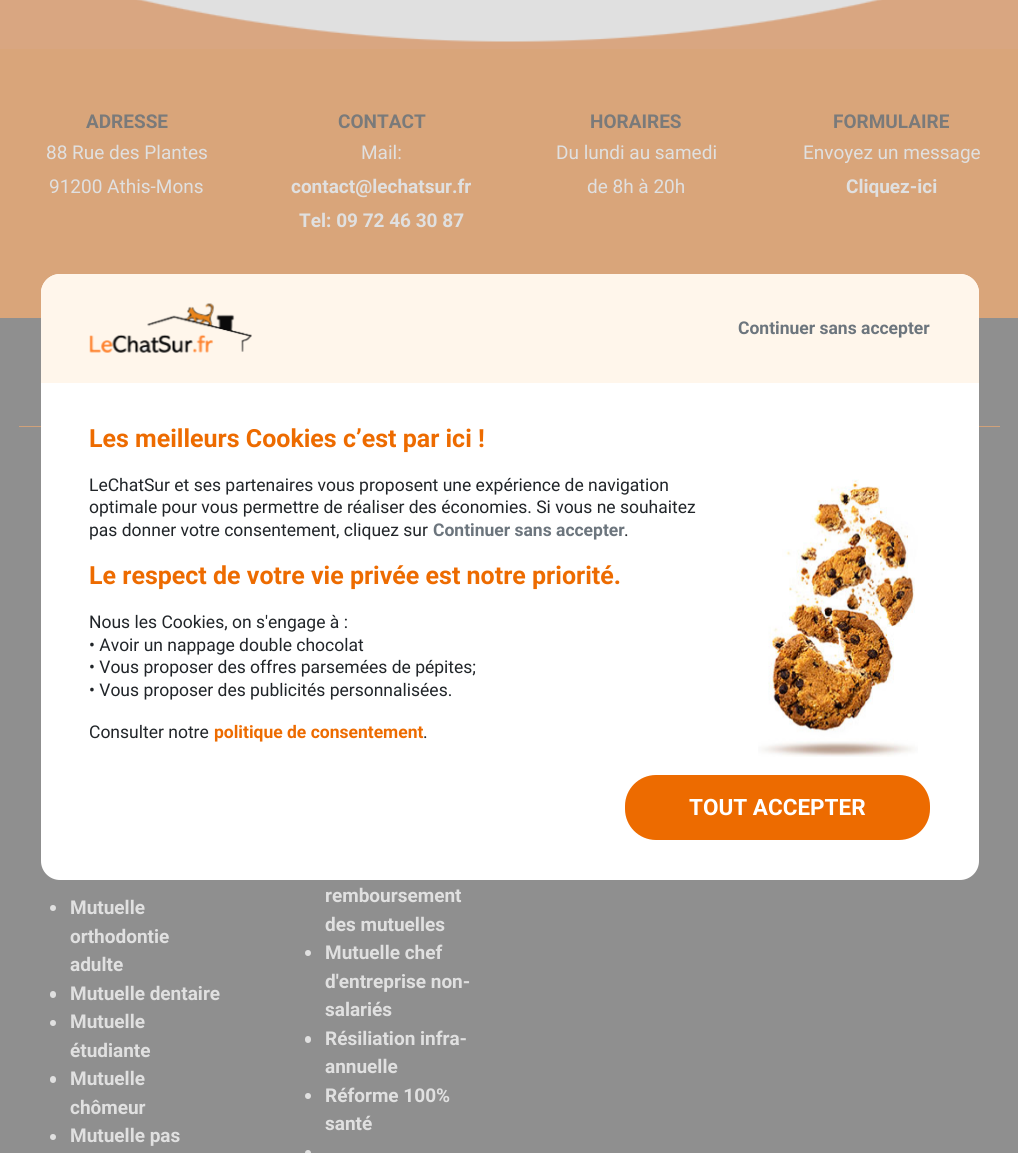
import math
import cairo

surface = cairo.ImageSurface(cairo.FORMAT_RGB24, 1018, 1153)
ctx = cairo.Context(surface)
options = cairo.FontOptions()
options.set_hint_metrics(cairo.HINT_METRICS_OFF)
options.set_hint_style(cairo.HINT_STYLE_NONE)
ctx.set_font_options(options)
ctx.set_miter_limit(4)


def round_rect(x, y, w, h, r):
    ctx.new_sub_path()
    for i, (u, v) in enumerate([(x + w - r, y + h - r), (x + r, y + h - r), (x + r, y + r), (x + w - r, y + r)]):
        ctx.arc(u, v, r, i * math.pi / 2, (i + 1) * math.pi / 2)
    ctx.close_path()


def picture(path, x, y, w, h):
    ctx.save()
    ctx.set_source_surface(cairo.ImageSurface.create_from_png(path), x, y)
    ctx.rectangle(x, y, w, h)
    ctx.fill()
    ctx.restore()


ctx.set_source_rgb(1, 1, 1)
ctx.paint()
picture("img1.png", 0, 0, 1018, 49)
ctx.set_source_rgb(0.851, 0.647, 0.478)
ctx.rectangle(0, 49, 1018, 269)
ctx.fill()
ctx.select_font_face("Roboto", cairo.FONT_SLANT_NORMAL, cairo.FONT_WEIGHT_BOLD)
ctx.set_font_size(19)
ctx.set_source_rgb(0.478, 0.478, 0.478)
ctx.move_to(86, 128)
ctx.show_text("ADRESSE")
ctx.select_font_face("Roboto")
ctx.set_source_rgb(0.878, 0.878, 0.878)
ctx.move_to(46, 159)
ctx.show_text("88 Rue des Plantes")
ctx.move_to(49, 193)
ctx.show_text("91200 Athis-Mons")
ctx.select_font_face("Roboto", cairo.FONT_SLANT_NORMAL, cairo.FONT_WEIGHT_BOLD)
ctx.set_source_rgb(0.478, 0.478, 0.478)
ctx.move_to(338, 128)
ctx.show_text("CONTACT")
ctx.select_font_face("Roboto")
ctx.set_source_rgb(0.878, 0.878, 0.878)
ctx.move_to(361, 159)
ctx.show_text("Mail:")
ctx.select_font_face("Roboto", cairo.FONT_SLANT_NORMAL, cairo.FONT_WEIGHT_BOLD)
ctx.move_to(291, 193)
ctx.show_text("contact@lechatsur.fr")
ctx.move_to(299, 227)
ctx.show_text("Tel: 09 72 46 30 87")
ctx.set_source_rgb(0.478, 0.478, 0.478)
ctx.move_to(590, 128)
ctx.show_text("HORAIRES")
ctx.select_font_face("Roboto")
ctx.set_source_rgb(0.878, 0.878, 0.878)
ctx.move_to(556, 159)
ctx.show_text("Du lundi au samedi")
ctx.move_to(587, 193)
ctx.show_text("de 8h à 20h")
ctx.select_font_face("Roboto", cairo.FONT_SLANT_NORMAL, cairo.FONT_WEIGHT_BOLD)
ctx.set_source_rgb(0.478, 0.478, 0.478)
ctx.move_to(833, 128)
ctx.show_text("FORMULAIRE")
ctx.select_font_face("Roboto")
ctx.set_source_rgb(0.878, 0.878, 0.878)
ctx.move_to(803, 159)
ctx.show_text("Envoyez un message")
ctx.select_font_face("Roboto", cairo.FONT_SLANT_NORMAL, cairo.FONT_WEIGHT_BOLD)
ctx.move_to(846, 193)
ctx.show_text("Cliquez-ici")
ctx.set_source_rgb(0.561, 0.561, 0.561)
ctx.rectangle(0, 318, 1018, 835)
ctx.fill()
ctx.set_source_rgb(0.816, 0.631, 0.478)
ctx.rectangle(19, 426, 981, 1)
ctx.fill()
ctx.set_source_rgb(0.878, 0.878, 0.878)
ctx.arc(53, 908, 3, 0, 2 * math.pi)
ctx.fill()
ctx.move_to(70, 914)
ctx.show_text("Mutuelle")
ctx.move_to(70, 943)
ctx.show_text("orthodontie")
ctx.move_to(70, 971)
ctx.show_text("adulte")
round_rect(50, 991, 6, 7, 3)
ctx.fill()
ctx.move_to(70, 1000)
ctx.show_text("Mutuelle dentaire")
ctx.new_path()
ctx.arc(53, 1023, 3, 0, 2 * math.pi)
ctx.fill()
ctx.move_to(70, 1028)
ctx.show_text("Mutuelle")
ctx.move_to(70, 1057)
ctx.show_text("étudiante")
round_rect(50, 1076, 6, 7, 3)
ctx.fill()
ctx.move_to(70, 1085)
ctx.show_text("Mutuelle")
ctx.move_to(70, 1114)
ctx.show_text("chômeur")
ctx.new_path()
ctx.arc(53, 1137, 3, 0, 2 * math.pi)
ctx.fill()
ctx.move_to(70, 1142)
ctx.show_text("Mutuelle pas")
ctx.move_to(325, 902)
ctx.show_text("remboursement")
ctx.move_to(325, 931)
ctx.show_text("des mutuelles")
ctx.new_path()
ctx.arc(308, 953, 3, 0, 2 * math.pi)
ctx.fill()
ctx.move_to(325, 959)
ctx.show_text("Mutuelle chef")
ctx.move_to(325, 988)
ctx.show_text("d'entreprise non-")
ctx.move_to(325, 1016)
ctx.show_text("salariés")
round_rect(305, 1036, 6, 7, 3)
ctx.fill()
ctx.move_to(325, 1045)
ctx.show_text("Résiliation infra-")
ctx.move_to(325, 1073)
ctx.show_text("annuelle")
ctx.new_path()
ctx.arc(308, 1096, 3, 0, 2 * math.pi)
ctx.fill()
ctx.move_to(325, 1102)
ctx.show_text("Réforme 100%")
ctx.move_to(325, 1130)
ctx.show_text("santé")
ctx.new_path()
ctx.arc(308, 1153, 3, 0, 2 * math.pi)
ctx.fill()
ctx.set_source_rgb(1, 1, 1)
round_rect(41, 274, 938, 606, 19)
ctx.fill()
ctx.set_source_rgb(1, 0.961, 0.918)
ctx.new_path()
ctx.move_to(60, 274)
ctx.line_to(960, 274)
ctx.curve_to(970.5, 274, 979, 282.5, 979, 293)
ctx.line_to(979, 383)
ctx.line_to(41, 383)
ctx.line_to(41, 293)
ctx.curve_to(41, 282.5, 49.5, 274, 60, 274)
ctx.close_path()
ctx.fill()
picture("img2.png", 89, 303, 163, 50)
ctx.set_font_size(17.5)
ctx.set_source_rgb(0.424, 0.459, 0.49)
ctx.move_to(738, 334)
ctx.show_text("Continuer sans accepter")
ctx.set_font_size(25)
ctx.set_source_rgb(0.929, 0.42, 0)
ctx.move_to(89, 447)
ctx.show_text("Les meilleurs Cookies c’est par ici !")
ctx.select_font_face("Roboto")
ctx.set_font_size(17.5)
ctx.set_source_rgb(0.129, 0.145, 0.161)
ctx.move_to(89, 491)
ctx.show_text("LeChatSur et ses partenaires vous proposent une expérience de navigation")
ctx.move_to(89, 513)
ctx.show_text("optimale pour vous permettre de réaliser des économies. Si vous ne souhaitez")
ctx.move_to(89, 536)
ctx.show_text("pas donner votre consentement, cliquez sur")
ctx.select_font_face("Roboto", cairo.FONT_SLANT_NORMAL, cairo.FONT_WEIGHT_BOLD)
ctx.set_source_rgb(0.424, 0.459, 0.49)
ctx.move_to(433, 536)
ctx.show_text("Continuer sans accepter")
ctx.select_font_face("Roboto")
ctx.set_source_rgb(0.129, 0.145, 0.161)
ctx.move_to(624, 536)
ctx.show_text(".")
ctx.select_font_face("Roboto", cairo.FONT_SLANT_NORMAL, cairo.FONT_WEIGHT_BOLD)
ctx.set_font_size(25)
ctx.set_source_rgb(0.929, 0.42, 0)
ctx.move_to(89, 584)
ctx.show_text("Le respect de votre vie privée est notre priorité.")
ctx.select_font_face("Roboto")
ctx.set_font_size(17.5)
ctx.set_source_rgb(0.129, 0.145, 0.161)
ctx.move_to(89, 628)
ctx.show_text("Nous les Cookies, on s'engage à :")
ctx.move_to(89, 651)
ctx.show_text("• Avoir un nappage double chocolat")
ctx.move_to(89, 673)
ctx.show_text("• Vous proposer des offres parsemées de pépites;")
ctx.move_to(89, 696)
ctx.show_text("• Vous proposer des publicités personnalisées.")
ctx.move_to(89, 738)
ctx.show_text("Consulter notre")
ctx.select_font_face("Roboto", cairo.FONT_SLANT_NORMAL, cairo.FONT_WEIGHT_BOLD)
ctx.set_source_rgb(0.929, 0.42, 0)
ctx.move_to(214, 738)
ctx.show_text("politique de consentement")
ctx.select_font_face("Roboto")
ctx.set_source_rgb(0.129, 0.145, 0.161)
ctx.move_to(423, 738)
ctx.show_text(".")
picture("img3.png", 758, 479, 160, 278)
ctx.set_source_rgb(0.929, 0.42, 0)
round_rect(625, 775, 305, 65, 31)
ctx.fill()
ctx.select_font_face("Roboto", cairo.FONT_SLANT_NORMAL, cairo.FONT_WEIGHT_BOLD)
ctx.set_font_size(22.5)
ctx.set_source_rgb(1, 1, 1)
ctx.move_to(689, 815)
ctx.show_text("TOUT ACCEPTER")
surface.write_to_png("page.png")
